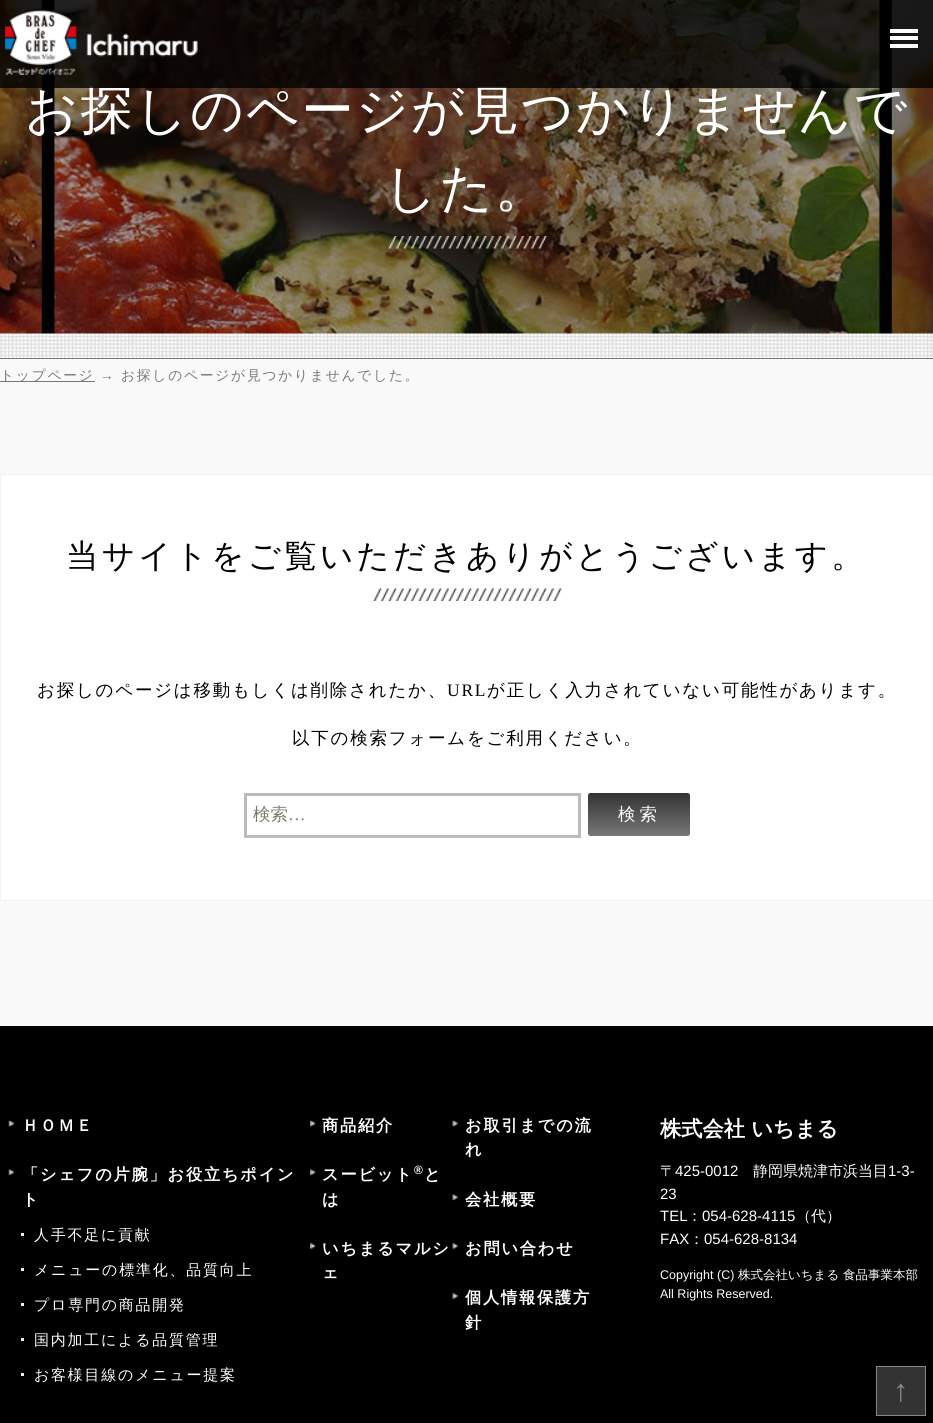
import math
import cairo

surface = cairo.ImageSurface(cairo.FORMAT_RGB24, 933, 1423)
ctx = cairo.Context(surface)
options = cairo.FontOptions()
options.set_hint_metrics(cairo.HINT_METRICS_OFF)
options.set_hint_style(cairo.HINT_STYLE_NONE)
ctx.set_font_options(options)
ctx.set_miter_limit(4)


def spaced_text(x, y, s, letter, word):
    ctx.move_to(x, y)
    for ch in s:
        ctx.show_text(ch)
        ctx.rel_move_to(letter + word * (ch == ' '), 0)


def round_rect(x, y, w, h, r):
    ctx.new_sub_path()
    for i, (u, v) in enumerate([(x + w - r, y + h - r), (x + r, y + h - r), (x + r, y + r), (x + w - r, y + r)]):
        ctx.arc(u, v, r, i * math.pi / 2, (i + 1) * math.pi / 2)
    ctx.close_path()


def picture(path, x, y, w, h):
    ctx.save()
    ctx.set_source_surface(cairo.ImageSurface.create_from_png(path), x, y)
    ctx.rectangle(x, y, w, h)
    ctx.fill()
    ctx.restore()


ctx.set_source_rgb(0, 0, 0)
ctx.paint()
picture("img2.png", 0, 0, 933, 359)
ctx.select_font_face("WenQuanYi Zen Hei Medium")
ctx.set_font_size(52.5)
ctx.set_source_rgb(1, 1, 1)
spaced_text(25, 128, "お探しのページが見つかりませんで", 1.75, 0)
ctx.set_source_rgba(0, 0, 0, 0.8)
ctx.rectangle(0, 0, 933, 88)
ctx.fill()
ctx.set_source_rgb(1, 1, 1)
ctx.rectangle(890, 29, 28, 4)
ctx.fill()
ctx.rectangle(890, 36, 28, 4)
ctx.fill()
ctx.rectangle(890, 44, 28, 4)
ctx.fill()
picture("img1.png", 5, 8, 193, 67)
picture("img3.png", 388, 236, 159, 13)
spaced_text(384, 206, "した。", 1.75, 0)
ctx.set_source_rgb(0.973, 0.973, 0.973)
ctx.rectangle(0, 359, 933, 667)
ctx.fill()
ctx.set_source_rgb(0.467, 0.467, 0.467)
ctx.rectangle(0, 381, 95, 1)
ctx.fill()
ctx.set_font_size(13.75)
spaced_text(0, 380, "トップページ", 1.75, 0)
ctx.select_font_face("Liberation Sans")
spaced_text(100, 380, "→", 1.75, 0)
ctx.select_font_face("WenQuanYi Zen Hei Medium")
spaced_text(121, 380, "お探しのページが見つかりませんでした。", 1.75, 0)
ctx.set_source_rgb(1, 1, 1)
ctx.rectangle(0.5, 474.5, 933, 426)
ctx.fill_preserve()
ctx.set_source_rgb(0.953, 0.953, 0.953)
ctx.set_line_width(1)
ctx.stroke()
picture("img4.png", 373, 588, 189, 13)
ctx.set_font_size(32.5)
ctx.set_source_rgb(0, 0, 0)
spaced_text(66, 567, "当サイトをご覧いただきありがとうございます。", 3.25, 0)
ctx.set_font_size(17.5)
spaced_text(37, 696, "お探しのページは移動もしくは削除されたか、", 1.75, 0)
ctx.select_font_face("Liberation Serif")
spaced_text(447, 696, "URL", 1.75, 0)
ctx.select_font_face("WenQuanYi Zen Hei Medium")
spaced_text(487, 696, "が正しく入力されていない可能性があります。", 1.75, 0)
spaced_text(292, 744, "以下の検索フォームをご利用ください。", 1.75, 0)
ctx.rectangle(245.5, 794.5, 334, 42)
ctx.set_source_rgb(0.733, 0.733, 0.733)
ctx.set_line_width(3)
ctx.stroke()
ctx.set_source_rgb(0.49, 0.482, 0.427)
ctx.move_to(253, 820)
ctx.show_text("検索")
ctx.select_font_face("Liberation Serif")
ctx.move_to(288, 820)
ctx.show_text("…")
gradient = cairo.LinearGradient(639, 793, 639, 836)
gradient.add_color_stop_rgba(0, 0.2, 0.2, 0.2, 1)
gradient.add_color_stop_rgba(1, 0.467, 0.467, 0.467, 1)
ctx.set_source(gradient)
round_rect(588, 793, 102, 43, 2.5)
ctx.fill()
ctx.select_font_face("WenQuanYi Zen Hei Medium")
ctx.set_source_rgb(1, 1, 1)
spaced_text(618, 820, "検索", 4, 0)
picture("img5.png", 8, 1119, 7, 9)
ctx.select_font_face("WenQuanYi Zen Hei", cairo.FONT_SLANT_NORMAL, cairo.FONT_WEIGHT_BOLD)
ctx.set_font_size(16.25)
spaced_text(22, 1131, "ＨＯＭＥ", 1.75, 0)
picture("img6.png", 8, 1168, 7, 8)
spaced_text(22, 1180, "「シェフの片腕」お役立ちポイン", 1.75, 0)
spaced_text(22, 1205, "ト", 1.75, 0)
ctx.set_source_rgb(0.941, 0.941, 0.941)
ctx.rectangle(21, 1233, 3, 3)
ctx.fill()
ctx.select_font_face("WenQuanYi Zen Hei Medium")
ctx.set_font_size(15)
ctx.set_source_rgb(1, 1, 1)
spaced_text(34, 1240, "人手不足に貢献", 1.75, 0)
ctx.set_source_rgb(0.941, 0.941, 0.941)
ctx.rectangle(21, 1268, 3, 3)
ctx.fill()
ctx.set_source_rgb(1, 1, 1)
spaced_text(34, 1275, "メニューの標準化、品質向上", 1.75, 0)
ctx.set_source_rgb(0.941, 0.941, 0.941)
ctx.rectangle(21, 1303, 3, 3)
ctx.fill()
ctx.set_source_rgb(1, 1, 1)
spaced_text(34, 1310, "プロ専門の商品開発", 1.75, 0)
ctx.set_source_rgb(0.941, 0.941, 0.941)
ctx.rectangle(21, 1338, 3, 3)
ctx.fill()
ctx.set_source_rgb(1, 1, 1)
spaced_text(34, 1345, "国内加工による品質管理", 1.75, 0)
ctx.set_source_rgb(0.941, 0.941, 0.941)
ctx.rectangle(21, 1373, 3, 3)
ctx.fill()
ctx.set_source_rgb(1, 1, 1)
spaced_text(34, 1380, "お客様目線のメニュー提案", 1.75, 0)
picture("img7.png", 310, 1119, 6, 9)
ctx.select_font_face("WenQuanYi Zen Hei", cairo.FONT_SLANT_NORMAL, cairo.FONT_WEIGHT_BOLD)
ctx.set_font_size(16.25)
spaced_text(322, 1131, "商品紹介", 1.75, 0)
picture("img8.png", 310, 1168, 6, 8)
spaced_text(322, 1180, "スービット", 1.75, 0)
ctx.select_font_face("Liberation Sans", cairo.FONT_SLANT_NORMAL, cairo.FONT_WEIGHT_BOLD)
ctx.set_font_size(12)
spaced_text(414, 1174, "®", 1.75, 0)
ctx.select_font_face("WenQuanYi Zen Hei", cairo.FONT_SLANT_NORMAL, cairo.FONT_WEIGHT_BOLD)
ctx.set_font_size(16.25)
spaced_text(424, 1180, "と", 1.75, 0)
spaced_text(322, 1205, "は", 1.75, 0)
picture("img9.png", 310, 1242, 6, 8)
spaced_text(322, 1254, "いちまるマルシ", 1.75, 0)
spaced_text(322, 1278, "ェ", 1.75, 0)
picture("img10.png", 452, 1120, 7, 7)
spaced_text(465, 1131, "お取引までの流", 1.75, 0)
spaced_text(465, 1155, "れ", 1.75, 0)
picture("img11.png", 452, 1193, 7, 8)
spaced_text(465, 1205, "会社概要", 1.75, 0)
picture("img12.png", 452, 1242, 7, 8)
spaced_text(465, 1254, "お問い合わせ", 1.75, 0)
picture("img12.png", 452, 1292, 7, 8)
spaced_text(465, 1303, "個人情報保護方", 1.75, 0)
spaced_text(465, 1328, "針", 1.75, 0)
ctx.set_font_size(21.25)
ctx.move_to(660, 1136)
ctx.show_text("株式会社 いちまる")
ctx.select_font_face("WenQuanYi Zen Hei Medium")
ctx.set_font_size(15)
ctx.move_to(660, 1176)
ctx.show_text("〒")
ctx.select_font_face("Liberation Sans")
ctx.move_to(675, 1176)
ctx.show_text("425-0012")
ctx.select_font_face("WenQuanYi Zen Hei Medium")
ctx.move_to(753, 1176)
ctx.show_text("静岡県焼津市浜当目")
ctx.select_font_face("Liberation Sans")
ctx.move_to(888, 1176)
ctx.show_text("1-3-")
ctx.move_to(660, 1199)
ctx.show_text("23")
ctx.move_to(660, 1221)
ctx.show_text("TEL")
ctx.select_font_face("WenQuanYi Zen Hei Medium")
ctx.move_to(687, 1221)
ctx.show_text("：")
ctx.select_font_face("Liberation Sans")
ctx.move_to(702, 1221)
ctx.show_text("054-628-4115")
ctx.select_font_face("WenQuanYi Zen Hei Medium")
ctx.move_to(796, 1221)
ctx.show_text("（代）")
ctx.select_font_face("Liberation Sans")
ctx.move_to(660, 1244)
ctx.show_text("FAX")
ctx.select_font_face("WenQuanYi Zen Hei Medium")
ctx.move_to(689, 1244)
ctx.show_text("：")
ctx.select_font_face("Liberation Sans")
ctx.move_to(704, 1244)
ctx.show_text("054-628-8134")
ctx.set_font_size(12.5)
ctx.move_to(660, 1279)
ctx.show_text("Copyright (C)")
ctx.select_font_face("WenQuanYi Zen Hei Medium")
ctx.move_to(738, 1279)
ctx.show_text("株式会社いちまる 食品事業本部")
ctx.select_font_face("Liberation Sans")
ctx.move_to(660, 1298)
ctx.show_text("All Rights Reserved.")
ctx.set_source_rgb(0.2, 0.2, 0.2)
ctx.rectangle(876.5, 1366.5, 49, 49)
ctx.fill_preserve()
ctx.set_source_rgb(0.533, 0.533, 0.533)
ctx.set_line_width(1)
ctx.stroke()
ctx.select_font_face("Liberation Serif")
ctx.set_font_size(31)
spaced_text(893, 1401, "↑", 1.75, 0)
surface.write_to_png("page.png")
